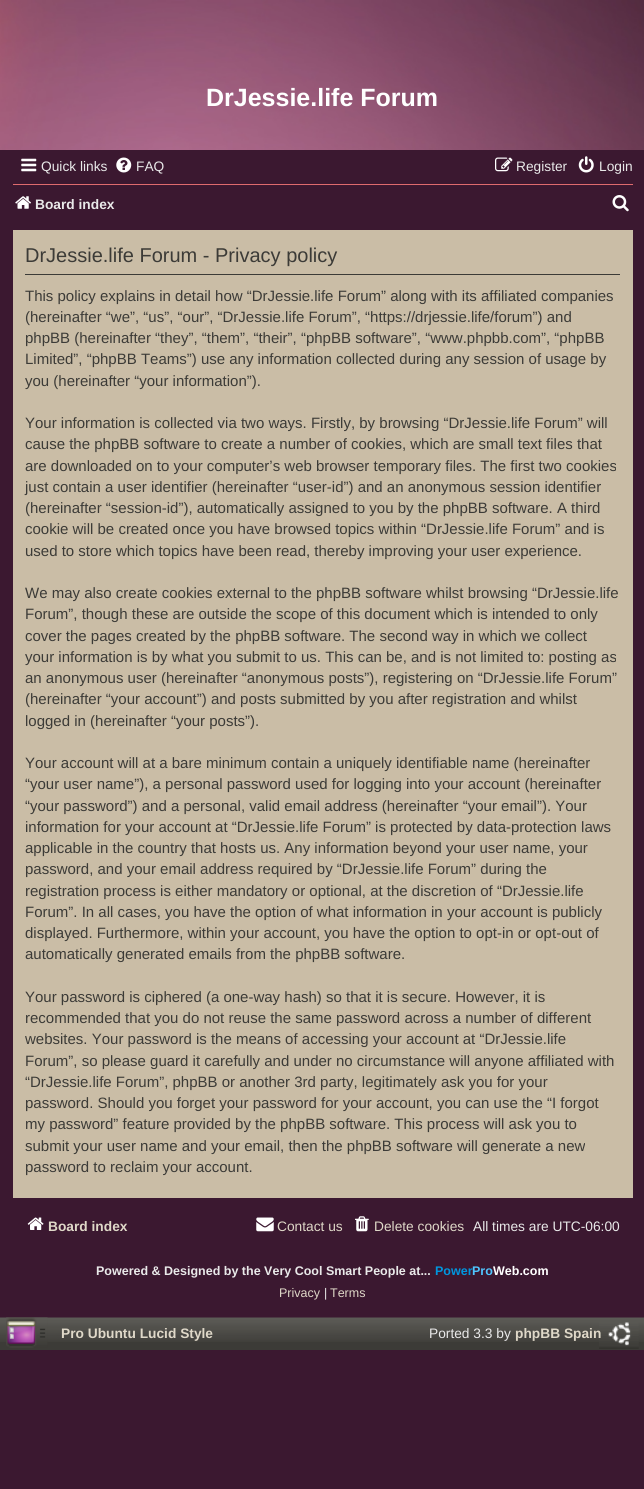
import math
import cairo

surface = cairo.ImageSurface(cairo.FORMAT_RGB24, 644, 1489)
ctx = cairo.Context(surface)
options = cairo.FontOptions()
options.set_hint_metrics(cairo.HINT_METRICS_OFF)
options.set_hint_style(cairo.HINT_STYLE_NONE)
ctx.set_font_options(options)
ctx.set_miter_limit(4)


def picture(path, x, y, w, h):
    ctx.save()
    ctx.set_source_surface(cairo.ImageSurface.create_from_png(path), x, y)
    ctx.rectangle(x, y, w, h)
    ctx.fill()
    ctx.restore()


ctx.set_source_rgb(0.231, 0.094, 0.188)
ctx.paint()
picture("img1.png", 0, 0, 644, 150)
ctx.select_font_face("Liberation Sans", cairo.FONT_SLANT_NORMAL, cairo.FONT_WEIGHT_BOLD)
ctx.set_font_size(25)
ctx.set_source_rgb(1, 1, 1)
ctx.move_to(206, 106)
ctx.show_text("DrJessie.life Forum")
picture("img2.png", 21, 158, 16, 14)
ctx.select_font_face("Liberation Sans")
ctx.set_font_size(13.75)
ctx.set_source_rgb(0.914, 0.914, 0.914)
ctx.move_to(41, 171)
ctx.show_text("Quick links")
picture("img3.png", 116, 157, 16, 16)
ctx.move_to(136, 171)
ctx.show_text("FAQ")
picture("img4.png", 495, 157, 18, 15)
ctx.move_to(516, 171)
ctx.show_text("Register")
picture("img5.png", 578, 156, 16, 17)
ctx.move_to(599, 171)
ctx.show_text("Login")
ctx.set_source_rgb(0.875, 0.42, 0.431)
ctx.rectangle(13, 184, 620, 1)
ctx.fill()
picture("img6.png", 15, 196, 16, 13)
ctx.select_font_face("Liberation Sans", cairo.FONT_SLANT_NORMAL, cairo.FONT_WEIGHT_BOLD)
ctx.set_source_rgb(0.914, 0.914, 0.914)
ctx.move_to(35, 209)
ctx.show_text("Board index")
picture("img7.png", 612, 195, 17, 17)
ctx.set_source_rgb(0.792, 0.741, 0.651)
ctx.rectangle(13, 230, 620, 968)
ctx.fill()
ctx.set_source_rgb(0.235, 0.231, 0.216)
ctx.rectangle(25, 274, 595, 1)
ctx.fill()
ctx.select_font_face("Liberation Sans")
ctx.set_font_size(20)
ctx.move_to(25, 262)
ctx.show_text("DrJessie.life Forum - Privacy policy")
ctx.set_font_size(15)
ctx.move_to(25, 301)
ctx.show_text("This policy explains in detail how “DrJessie.life Forum” along with its affiliated companies")
ctx.move_to(25, 322)
ctx.show_text("(hereinafter “we”, “us”, “our”, “DrJessie.life Forum”, “https://drjessie.life/forum”) and")
ctx.move_to(25, 343)
ctx.show_text("phpBB (hereinafter “they”, “them”, “their”, “phpBB software”, “www.phpbb.com”, “phpBB")
ctx.move_to(25, 364)
ctx.show_text("Limited”, “phpBB Teams”) use any information collected during any session of usage by")
ctx.move_to(25, 386)
ctx.show_text("you (hereinafter “your information”).")
ctx.move_to(25, 428)
ctx.show_text("Your information is collected via two ways. Firstly, by browsing “DrJessie.life Forum” will")
ctx.move_to(25, 449)
ctx.show_text("cause the phpBB software to create a number of cookies, which are small text files that")
ctx.move_to(25, 471)
ctx.show_text("are downloaded on to your computer’s web browser temporary files. The first two cookies")
ctx.move_to(25, 492)
ctx.show_text("just contain a user identifier (hereinafter “user-id”) and an anonymous session identifier")
ctx.move_to(25, 513)
ctx.show_text("(hereinafter “session-id”), automatically assigned to you by the phpBB software. A third")
ctx.move_to(25, 534)
ctx.show_text("cookie will be created once you have browsed topics within “DrJessie.life Forum” and is")
ctx.move_to(25, 556)
ctx.show_text("used to store which topics have been read, thereby improving your user experience.")
ctx.move_to(25, 598)
ctx.show_text("We may also create cookies external to the phpBB software whilst browsing “DrJessie.life")
ctx.move_to(25, 619)
ctx.show_text("Forum”, though these are outside the scope of this document which is intended to only")
ctx.move_to(25, 641)
ctx.show_text("cover the pages created by the phpBB software. The second way in which we collect")
ctx.move_to(25, 662)
ctx.show_text("your information is by what you submit to us. This can be, and is not limited to: posting as")
ctx.move_to(25, 683)
ctx.show_text("an anonymous user (hereinafter “anonymous posts”), registering on “DrJessie.life Forum”")
ctx.move_to(25, 704)
ctx.show_text("(hereinafter “your account”) and posts submitted by you after registration and whilst")
ctx.move_to(25, 726)
ctx.show_text("logged in (hereinafter “your posts”).")
ctx.move_to(25, 768)
ctx.show_text("Your account will at a bare minimum contain a uniquely identifiable name (hereinafter")
ctx.move_to(25, 789)
ctx.show_text("“your user name”), a personal password used for logging into your account (hereinafter")
ctx.move_to(25, 811)
ctx.show_text("“your password”) and a personal, valid email address (hereinafter “your email”). Your")
ctx.move_to(25, 832)
ctx.show_text("information for your account at “DrJessie.life Forum” is protected by data-protection laws")
ctx.move_to(25, 853)
ctx.show_text("applicable in the country that hosts us. Any information beyond your user name, your")
ctx.move_to(25, 874)
ctx.show_text("password, and your email address required by “DrJessie.life Forum” during the")
ctx.move_to(25, 896)
ctx.show_text("registration process is either mandatory or optional, at the discretion of “DrJessie.life")
ctx.move_to(25, 917)
ctx.show_text("Forum”. In all cases, you have the option of what information in your account is publicly")
ctx.move_to(25, 938)
ctx.show_text("displayed. Furthermore, within your account, you have the option to opt-in or opt-out of")
ctx.move_to(25, 959)
ctx.show_text("automatically generated emails from the phpBB software.")
ctx.move_to(25, 1002)
ctx.show_text("Your password is ciphered (a one-way hash) so that it is secure. However, it is")
ctx.move_to(25, 1023)
ctx.show_text("recommended that you do not reuse the same password across a number of different")
ctx.move_to(25, 1044)
ctx.show_text("websites. Your password is the means of accessing your account at “DrJessie.life")
ctx.move_to(25, 1066)
ctx.show_text("Forum”, so please guard it carefully and under no circumstance will anyone affiliated with")
ctx.move_to(25, 1087)
ctx.show_text("“DrJessie.life Forum”, phpBB or another 3rd party, legitimately ask you for your")
ctx.move_to(25, 1108)
ctx.show_text("password. Should you forget your password for your account, you can use the “I forgot")
ctx.move_to(25, 1129)
ctx.show_text("my password” feature provided by the phpBB software. This process will ask you to")
ctx.move_to(25, 1151)
ctx.show_text("submit your user name and your email, then the phpBB software will generate a new")
ctx.move_to(25, 1172)
ctx.show_text("password to reclaim your account.")
picture("img8.png", 27, 1217, 17, 13)
ctx.select_font_face("Liberation Sans", cairo.FONT_SLANT_NORMAL, cairo.FONT_WEIGHT_BOLD)
ctx.set_font_size(13.75)
ctx.set_source_rgb(0.875, 0.847, 0.784)
ctx.move_to(48, 1231)
ctx.show_text("Board index")
picture("img9.png", 256, 1217, 18, 15)
ctx.select_font_face("Liberation Sans")
ctx.move_to(277, 1231)
ctx.show_text("Contact us")
picture("img10.png", 355, 1216, 14, 16)
ctx.move_to(374, 1231)
ctx.show_text("Delete cookies")
ctx.set_source_rgb(0.914, 0.914, 0.914)
ctx.move_to(473, 1231)
ctx.show_text("All times are UTC-06:00")
ctx.select_font_face("Liberation Sans", cairo.FONT_SLANT_NORMAL, cairo.FONT_WEIGHT_BOLD)
ctx.set_font_size(12.5)
ctx.move_to(96, 1275)
ctx.show_text("Powered & Designed by the Very Cool Smart People at...")
ctx.set_source_rgb(0, 0.588, 0.871)
ctx.move_to(435, 1275)
ctx.show_text("Power")
ctx.set_source_rgb(0.314, 0.776, 1)
ctx.move_to(472, 1275)
ctx.show_text("Pro")
ctx.set_source_rgb(1, 1, 1)
ctx.move_to(493, 1275)
ctx.show_text("Web.com")
ctx.select_font_face("Liberation Sans")
ctx.set_source_rgb(0.875, 0.847, 0.784)
ctx.move_to(279, 1297)
ctx.show_text("Privacy")
ctx.set_source_rgb(0.914, 0.914, 0.914)
ctx.move_to(324, 1297)
ctx.show_text("|")
ctx.set_source_rgb(0.875, 0.847, 0.784)
ctx.move_to(330, 1297)
ctx.show_text("Terms")
ctx.set_source_rgb(0.235, 0.231, 0.216)
ctx.rectangle(0, 1342, 644, 8)
ctx.fill()
picture("img11.png", 0, 1317, 644, 25)
picture("img12.png", 599, 1322, 40, 27)
picture("img13.png", 6, 1317, 42, 31)
ctx.select_font_face("Liberation Sans", cairo.FONT_SLANT_NORMAL, cairo.FONT_WEIGHT_BOLD)
ctx.set_font_size(13.75)
ctx.set_source_rgb(0.875, 0.847, 0.784)
ctx.move_to(61, 1338)
ctx.show_text("Pro Ubuntu Lucid Style")
ctx.select_font_face("Liberation Sans")
ctx.set_source_rgb(0.914, 0.914, 0.914)
ctx.move_to(429, 1338)
ctx.show_text("Ported 3.3 by")
ctx.select_font_face("Liberation Sans", cairo.FONT_SLANT_NORMAL, cairo.FONT_WEIGHT_BOLD)
ctx.set_source_rgb(0.875, 0.847, 0.784)
ctx.move_to(515, 1338)
ctx.show_text("phpBB Spain")
surface.write_to_png("page.png")
